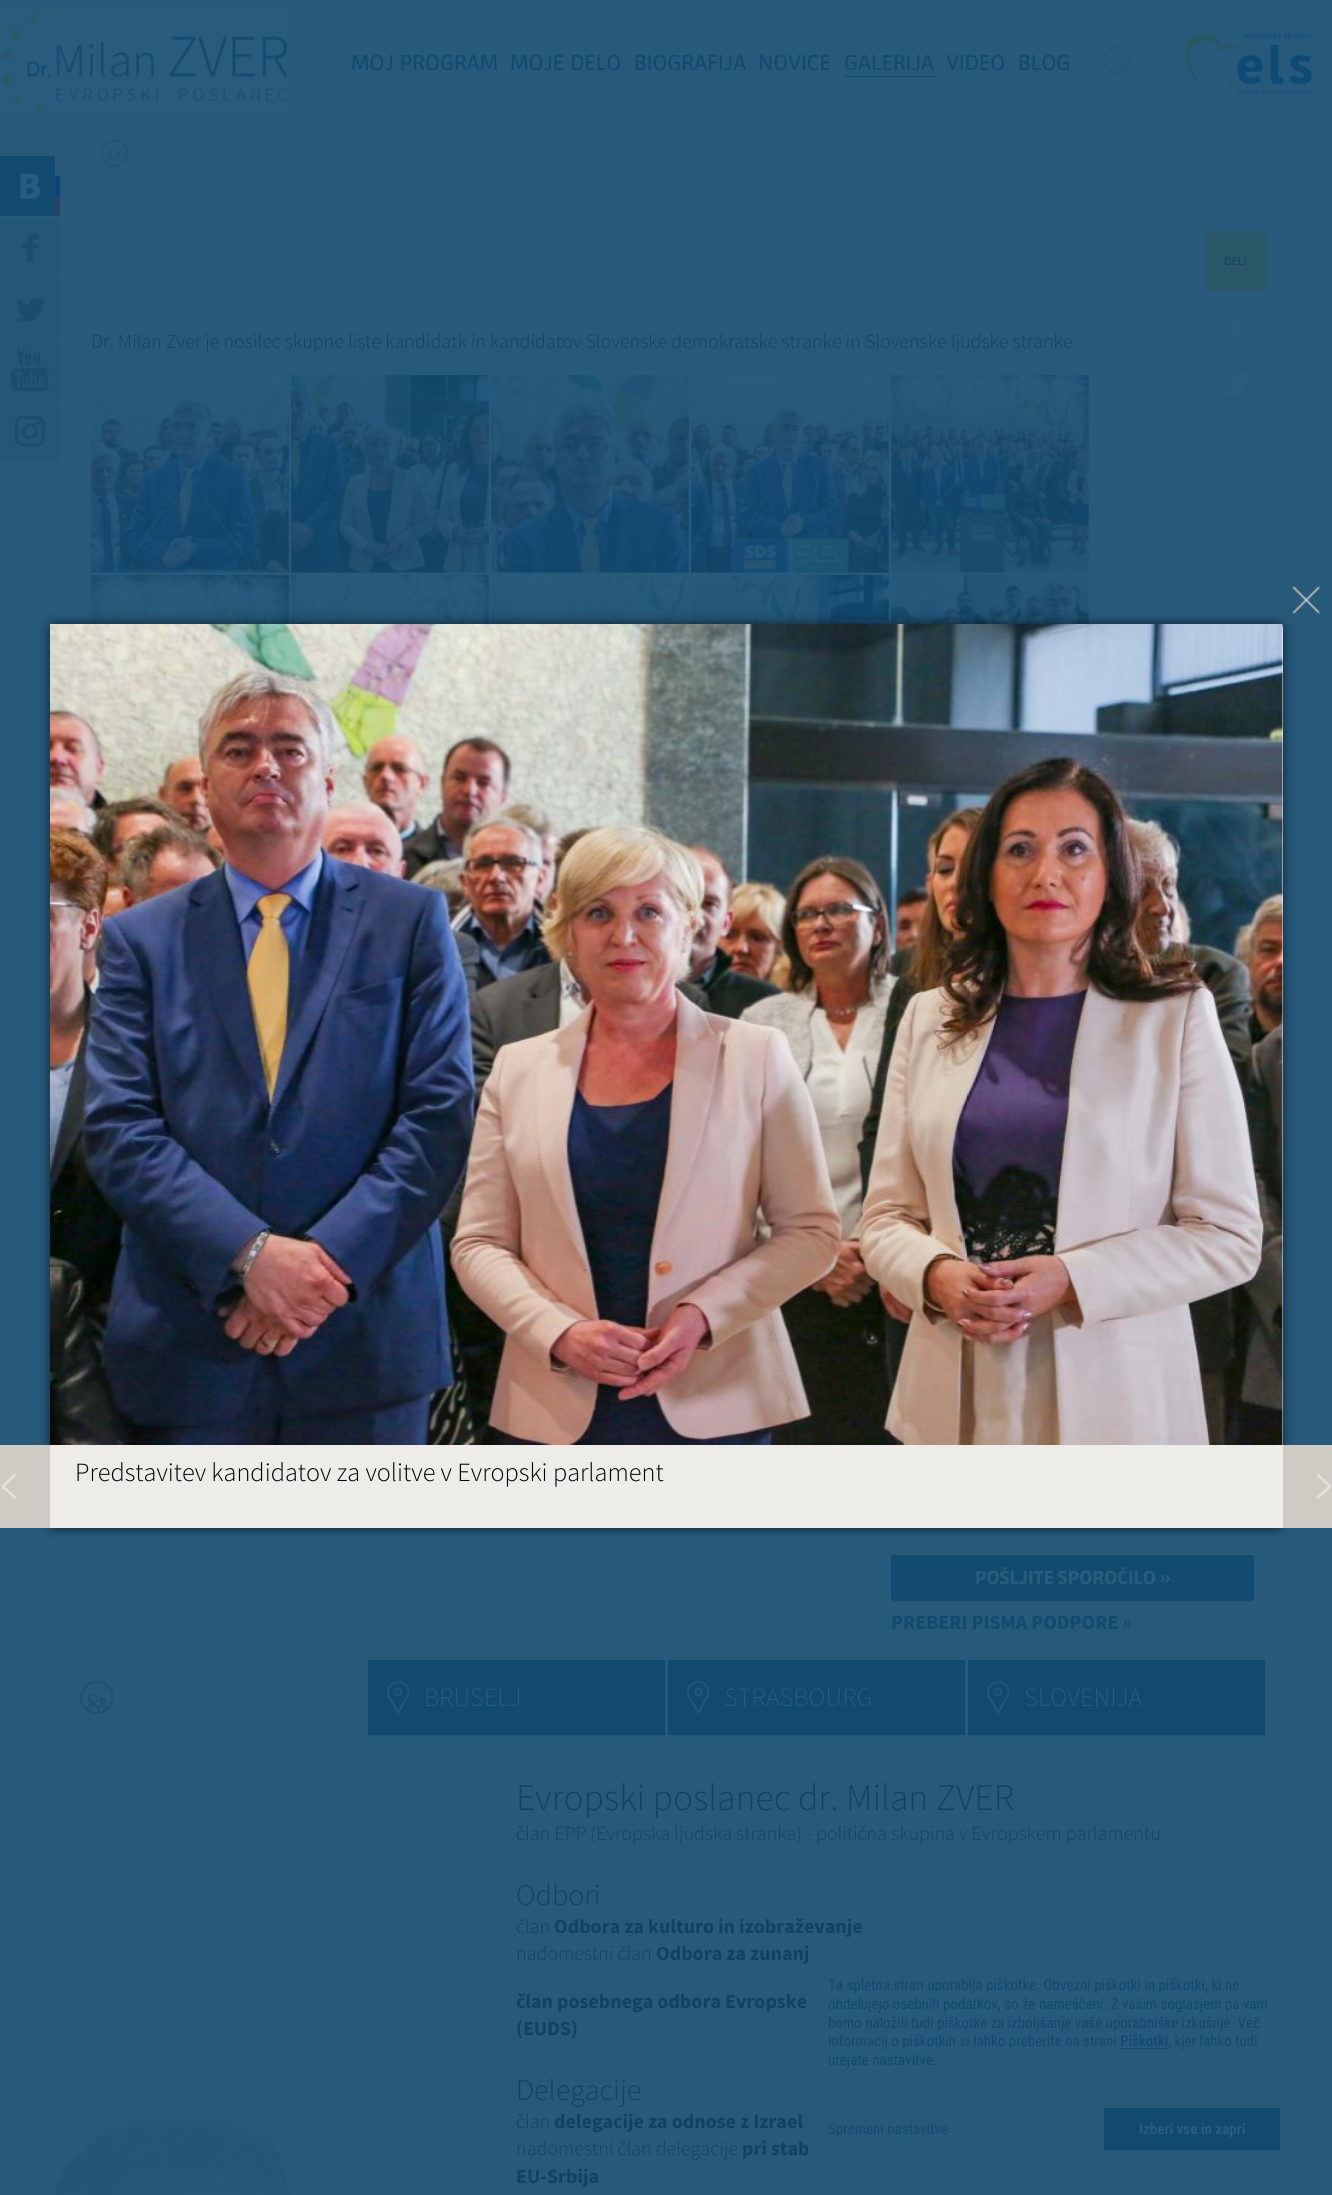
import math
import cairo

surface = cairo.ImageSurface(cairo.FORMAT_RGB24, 1332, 2195)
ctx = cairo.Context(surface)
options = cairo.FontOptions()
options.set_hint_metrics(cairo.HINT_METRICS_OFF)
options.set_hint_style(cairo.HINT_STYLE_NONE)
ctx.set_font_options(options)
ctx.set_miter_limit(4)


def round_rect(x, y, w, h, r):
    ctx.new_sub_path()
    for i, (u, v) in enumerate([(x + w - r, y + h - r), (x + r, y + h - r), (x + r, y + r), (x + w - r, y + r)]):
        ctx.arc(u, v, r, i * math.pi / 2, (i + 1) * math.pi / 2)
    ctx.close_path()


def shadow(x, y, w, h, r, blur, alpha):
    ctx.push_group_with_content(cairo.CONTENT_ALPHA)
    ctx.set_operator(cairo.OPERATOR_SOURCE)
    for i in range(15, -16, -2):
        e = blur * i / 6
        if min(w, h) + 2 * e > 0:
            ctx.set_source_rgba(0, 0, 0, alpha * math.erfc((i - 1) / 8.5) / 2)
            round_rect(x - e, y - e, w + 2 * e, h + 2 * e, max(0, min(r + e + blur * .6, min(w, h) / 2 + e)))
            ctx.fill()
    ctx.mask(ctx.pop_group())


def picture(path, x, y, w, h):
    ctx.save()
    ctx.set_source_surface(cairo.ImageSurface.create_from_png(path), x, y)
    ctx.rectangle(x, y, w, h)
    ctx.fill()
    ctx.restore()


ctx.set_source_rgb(0.153, 0.349, 0.482)
ctx.paint()
picture("img1.png", 0, 7, 288, 111)
ctx.select_font_face("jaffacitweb")
ctx.set_font_size(20)
ctx.set_source_rgb(0.067, 0.286, 0.435)
ctx.move_to(351, 70)
ctx.show_text("MOJ PROGRAM")
ctx.move_to(510, 70)
ctx.show_text("MOJE DELO")
ctx.move_to(634, 70)
ctx.show_text("BIOGRAFIJA")
ctx.move_to(758, 70)
ctx.show_text("NOVICE")
ctx.move_to(844, 70)
ctx.show_text("GALERIJA")
ctx.rectangle(844, 76, 90, 1)
ctx.fill()
ctx.move_to(946, 70)
ctx.show_text("VIDEO")
ctx.move_to(1018, 70)
ctx.show_text("BLOG")
picture("img2.png", 1102, 46, 37, 34)
picture("img3.png", 1184, 32, 128, 63)
ctx.rectangle(0, 156, 55, 60)
ctx.fill()
picture("img4.png", 20, 173, 20, 26)
ctx.set_source_rgb(0.059, 0.259, 0.49)
ctx.rectangle(55, 176, 5, 20)
ctx.fill()
ctx.set_source_rgb(0.161, 0.259, 0.392)
ctx.rectangle(55, 196, 5, 20)
ctx.fill()
ctx.set_source_rgb(0.141, 0.337, 0.471)
ctx.rectangle(0, 218, 60, 60)
ctx.fill()
picture("img5.png", 22, 233, 17, 30)
ctx.rectangle(0, 279, 60, 60)
ctx.fill()
picture("img6.png", 15, 297, 30, 25)
ctx.rectangle(0, 340, 60, 60)
ctx.fill()
picture("img7.png", 11, 348, 38, 44)
ctx.rectangle(0, 401, 60, 60)
ctx.fill()
picture("img8.png", 15, 416, 30, 31)
picture("img9.png", 100, 139, 28, 28)
ctx.set_source_rgb(0.161, 0.341, 0.404)
ctx.rectangle(1206, 231, 60, 60)
ctx.fill()
ctx.select_font_face("Source Sans Pro")
ctx.set_font_size(12)
ctx.set_source_rgb(0.059, 0.259, 0.392)
ctx.move_to(1224, 265)
ctx.show_text("DELI")
picture("img10.png", 1228, 308, 17, 30)
picture("img11.png", 1221, 372, 30, 25)
ctx.select_font_face("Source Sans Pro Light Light")
ctx.set_font_size(20)
ctx.move_to(91, 348)
ctx.show_text("Dr. Milan Zver je nosilec skupne liste kandidatk in kandidatov Slovenske demokratske stranke in Slovenske ljudske stranke.")
picture("img12.png", 91, 375, 198, 198)
picture("img13.png", 291, 375, 198, 198)
picture("img14.png", 491, 375, 198, 198)
picture("img15.png", 691, 375, 198, 198)
picture("img16.png", 891, 375, 198, 198)
picture("img17.png", 91, 575, 198, 49)
picture("img18.png", 291, 575, 198, 49)
picture("img19.png", 491, 575, 198, 49)
picture("img20.png", 691, 575, 198, 49)
picture("img21.png", 891, 575, 198, 49)
ctx.set_source_rgb(0.067, 0.286, 0.435)
round_rect(891, 1555, 363, 45, 2.5)
ctx.fill()
ctx.set_source_rgb(0.067, 0.294, 0.439)
ctx.rectangle(893, 1599, 360, 2)
ctx.fill()
ctx.select_font_face("jaffacitweb", cairo.FONT_SLANT_NORMAL, cairo.FONT_WEIGHT_BOLD)
ctx.set_font_size(17.5)
ctx.set_source_rgb(0.161, 0.357, 0.49)
ctx.move_to(975, 1584)
ctx.show_text("POŠLJITE SPOROČILO »")
ctx.select_font_face("Source Sans Pro", cairo.FONT_SLANT_NORMAL, cairo.FONT_WEIGHT_BOLD)
ctx.set_font_size(20)
ctx.set_source_rgb(0.067, 0.286, 0.435)
ctx.move_to(891, 1629)
ctx.show_text("PREBERI PISMA PODPORE »")
picture("img22.png", 80, 1681, 34, 33)
ctx.rectangle(368, 1660, 297, 75)
ctx.fill()
picture("img23.png", 387, 1681, 22, 33)
ctx.select_font_face("Source Sans Pro Light Light")
ctx.set_font_size(26.25)
ctx.set_source_rgb(0.161, 0.357, 0.49)
ctx.move_to(424, 1706)
ctx.show_text("BRUSELJ")
ctx.set_source_rgb(0.067, 0.286, 0.435)
ctx.rectangle(668, 1660, 297, 75)
ctx.fill()
picture("img24.png", 687, 1681, 22, 33)
ctx.set_source_rgb(0.161, 0.357, 0.49)
ctx.move_to(724, 1706)
ctx.show_text("STRASBOURG")
ctx.set_source_rgb(0.067, 0.286, 0.435)
ctx.rectangle(968, 1660, 297, 75)
ctx.fill()
picture("img23.png", 987, 1681, 22, 33)
ctx.set_source_rgb(0.161, 0.357, 0.49)
ctx.move_to(1024, 1706)
ctx.show_text("SLOVENIJA")
picture("img25.png", 53, 2113, 238, 82)
ctx.set_font_size(37.5)
ctx.set_source_rgb(0.059, 0.259, 0.392)
ctx.move_to(516, 1810)
ctx.show_text("Evropski poslanec dr. Milan ZVER")
ctx.set_font_size(20)
ctx.move_to(516, 1840)
ctx.show_text("član EPP (Evropska ljudska stranka) - politična skupina v Evropskem parlamentu")
ctx.set_font_size(30)
ctx.move_to(516, 1905)
ctx.show_text("Odbori")
ctx.set_font_size(20)
ctx.move_to(516, 1933)
ctx.show_text("član")
ctx.select_font_face("Source Sans Pro", cairo.FONT_SLANT_NORMAL, cairo.FONT_WEIGHT_BOLD)
ctx.move_to(554, 1933)
ctx.show_text("Odbora za kulturo in izobraževanje")
ctx.select_font_face("Source Sans Pro Light Light")
ctx.move_to(516, 1960)
ctx.show_text("nadomestni član")
ctx.select_font_face("Source Sans Pro", cairo.FONT_SLANT_NORMAL, cairo.FONT_WEIGHT_BOLD)
ctx.move_to(656, 1960)
ctx.show_text("Odbora za zunanj")
ctx.move_to(516, 2008)
ctx.show_text("član posebnega odbora Evropske")
ctx.move_to(516, 2035)
ctx.show_text("(EUDS)")
ctx.select_font_face("Source Sans Pro Light Light")
ctx.set_font_size(30)
ctx.move_to(516, 2100)
ctx.show_text("Delegacije")
ctx.set_font_size(20)
ctx.move_to(516, 2128)
ctx.show_text("član")
ctx.select_font_face("Source Sans Pro", cairo.FONT_SLANT_NORMAL, cairo.FONT_WEIGHT_BOLD)
ctx.move_to(554, 2128)
ctx.show_text("delegacije za odnose z Izrael")
ctx.select_font_face("Source Sans Pro Light Light")
ctx.move_to(516, 2155)
ctx.show_text("nadomestni član delegacije")
ctx.select_font_face("Source Sans Pro", cairo.FONT_SLANT_NORMAL, cairo.FONT_WEIGHT_BOLD)
ctx.move_to(742, 2155)
ctx.show_text("pri stab")
ctx.move_to(516, 2183)
ctx.show_text("EU-Srbija")
ctx.set_source_rgb(0, 0, 0)
shadow(50, 624, 1233, 904, 5, 6, 0.6)
ctx.set_source_rgb(0.976, 0.976, 0.976)
round_rect(50, 624, 1233, 904, 5)
ctx.fill()
picture("img26.png", 1292, 586, 28, 28)
picture("img27.png", 50, 624, 1233, 821)
ctx.set_source_rgb(0.816, 0.792, 0.769)
ctx.rectangle(0, 1445, 50, 83)
ctx.fill()
picture("img28.png", 1, 1473, 15, 26)
ctx.rectangle(1283, 1445, 49, 83)
ctx.fill()
picture("img29.png", 1316, 1473, 16, 26)
ctx.set_source_rgb(0.929, 0.922, 0.914)
ctx.rectangle(50, 1445, 1233, 83)
ctx.fill()
ctx.select_font_face("Source Sans Pro Light Light")
ctx.set_font_size(26.25)
ctx.set_source_rgb(0, 0, 0)
ctx.move_to(75, 1481)
ctx.show_text("Predstavitev kandidatov za volitve v Evropski parlament")
ctx.set_source_rgb(0.161, 0.357, 0.49)
ctx.rectangle(808, 1956, 1, 197)
ctx.fill()
ctx.select_font_face("Roboto Condensed")
ctx.set_font_size(15)
ctx.set_source_rgb(0.067, 0.286, 0.435)
ctx.move_to(828, 1990)
ctx.show_text("Ta spletna stran uporablja piškotke. Obvezni piškotki in piškotki, ki ne")
ctx.move_to(828, 2009)
ctx.show_text("obdelujejo osebnih podatkov, so že nameščeni. Z vašim soglasjem pa vam")
ctx.move_to(828, 2028)
ctx.show_text("bomo naložili tudi piškotke za izboljšanje vaše uporabniške izkušnje. Več")
ctx.move_to(828, 2046)
ctx.show_text("informacij o piškotkih si lahko preberite na strani")
ctx.select_font_face("Roboto Condensed Medium")
ctx.move_to(1120, 2046)
ctx.show_text("Piškotki")
ctx.rectangle(1120, 2048, 49, 1)
ctx.fill()
ctx.select_font_face("Roboto Condensed")
ctx.move_to(1168, 2046)
ctx.show_text(", kjer lahko tudi")
ctx.move_to(828, 2065)
ctx.show_text("urejate nastavitve.")
ctx.move_to(828, 2134)
ctx.show_text("Spremeni nastavitve")
ctx.rectangle(1104, 2108, 176, 42)
ctx.fill()
ctx.select_font_face("Roboto Condensed", cairo.FONT_SLANT_NORMAL, cairo.FONT_WEIGHT_BOLD)
ctx.set_source_rgb(0.161, 0.357, 0.49)
ctx.move_to(1139, 2134)
ctx.show_text("Izberi vse in zapri")
surface.write_to_png("page.png")
